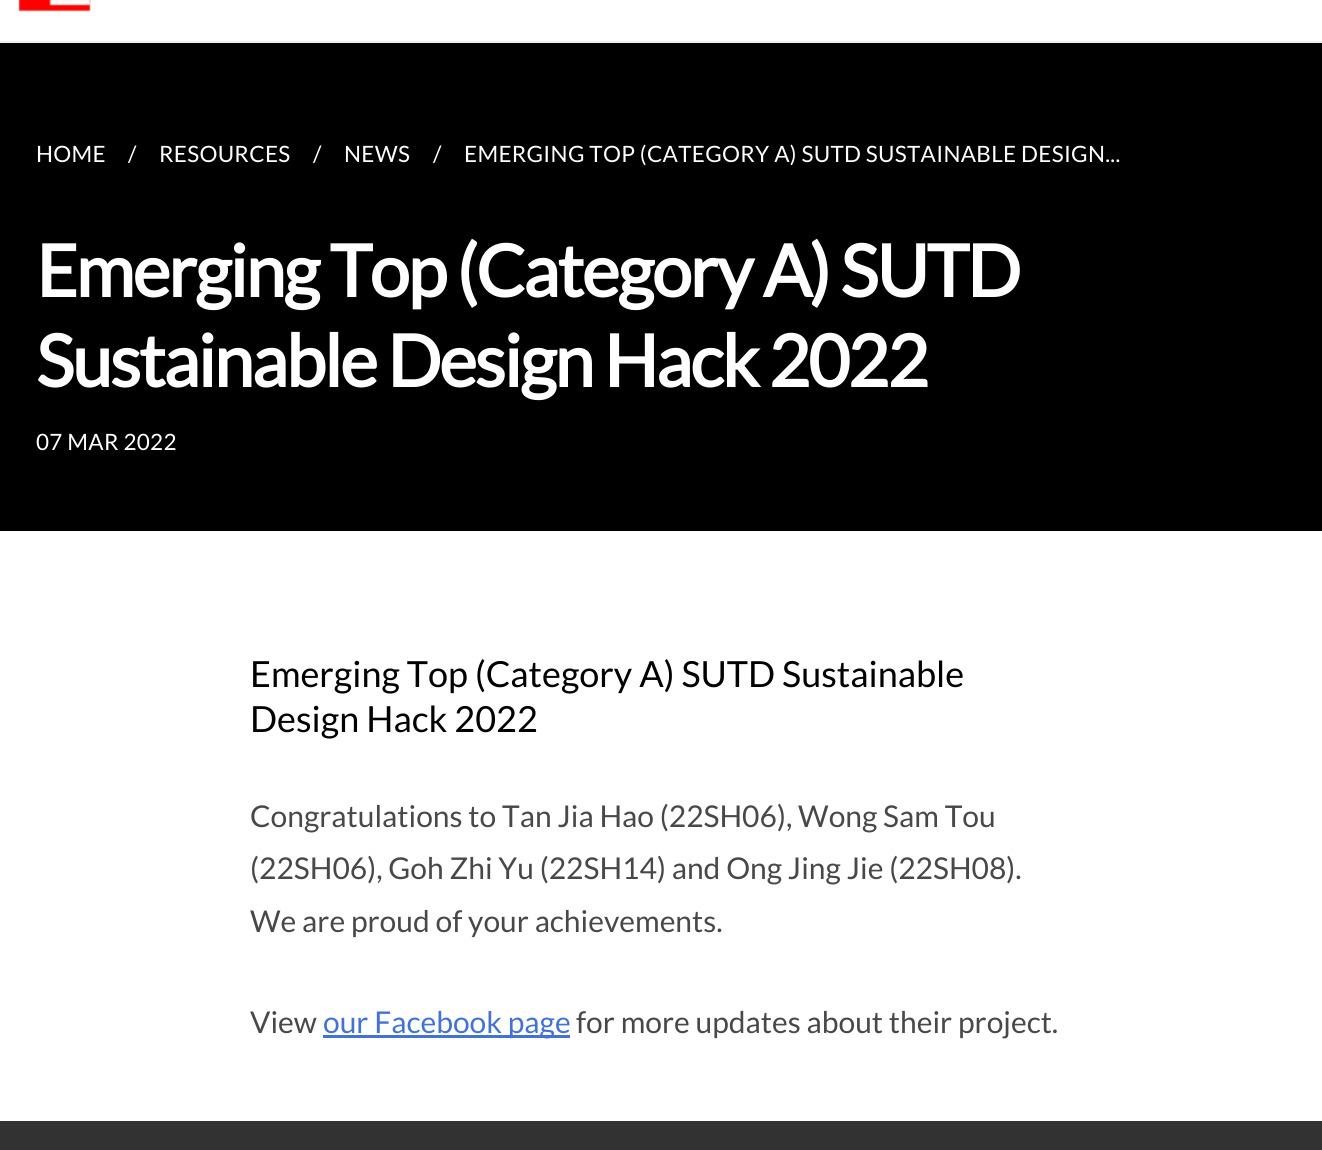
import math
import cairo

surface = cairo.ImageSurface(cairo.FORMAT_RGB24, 1322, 1150)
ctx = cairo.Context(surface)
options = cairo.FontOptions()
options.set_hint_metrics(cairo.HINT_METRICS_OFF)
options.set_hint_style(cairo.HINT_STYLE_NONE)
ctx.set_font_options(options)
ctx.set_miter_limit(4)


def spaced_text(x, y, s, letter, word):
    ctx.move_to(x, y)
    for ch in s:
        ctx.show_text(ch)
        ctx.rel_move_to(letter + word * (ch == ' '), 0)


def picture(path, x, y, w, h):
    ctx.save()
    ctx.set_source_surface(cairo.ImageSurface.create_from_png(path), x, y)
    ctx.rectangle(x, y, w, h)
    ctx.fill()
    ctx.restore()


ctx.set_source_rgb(1, 1, 1)
ctx.paint()
ctx.set_source_rgb(0.941, 0.941, 0.941)
ctx.rectangle(0, 41, 1322, 2)
ctx.fill()
picture("img1.png", 18, 0, 74, 12)
ctx.set_source_rgb(0, 0, 0)
ctx.rectangle(0, 43, 1322, 488)
ctx.fill()
ctx.select_font_face("Lato")
ctx.set_font_size(22.5)
ctx.set_source_rgb(1, 1, 1)
spaced_text(36, 162, "HOME", 0.3, 0)
ctx.move_to(128, 162)
ctx.show_text("/")
spaced_text(159, 162, "RESOURCES", 0.3, 0)
ctx.move_to(313, 162)
ctx.show_text("/")
spaced_text(344, 162, "NEWS", 0.3, 0)
ctx.move_to(433, 162)
ctx.show_text("/")
spaced_text(464, 162, "EMERGING TOP (CATEGORY A) SUTD SUSTAINABLE DESIGN...", 0.3, 0)
ctx.select_font_face("Lato", cairo.FONT_SLANT_NORMAL, cairo.FONT_WEIGHT_BOLD)
ctx.set_font_size(72)
spaced_text(36, 297, "Emerging Top (Category A) SUTD", -2.25, 0)
spaced_text(36, 387, "Sustainable Design Hack 2022", -2.25, 0)
ctx.select_font_face("Lato")
ctx.set_font_size(22.5)
spaced_text(36, 450, "07 MAR 2022", 0.3, 0)
ctx.set_font_size(36)
ctx.set_source_rgb(0, 0, 0)
ctx.move_to(250, 687)
ctx.show_text("Emerging Top (Category A) SUTD Sustainable")
ctx.move_to(250, 732)
ctx.show_text("Design Hack 2022")
ctx.set_font_size(30)
ctx.set_source_rgb(0.282, 0.282, 0.282)
ctx.move_to(250, 827)
ctx.show_text("Congratulations to Tan Jia Hao (22SH06), Wong Sam Tou")
ctx.move_to(250, 879)
ctx.show_text("(22SH06), Goh Zhi Yu (22SH14) and Ong Jing Jie (22SH08).")
ctx.move_to(250, 932)
ctx.show_text("We are proud of your achievements.")
ctx.move_to(250, 1033)
ctx.show_text("View")
ctx.set_source_rgb(0.263, 0.447, 0.839)
ctx.rectangle(323, 1035, 247, 3)
ctx.fill()
ctx.move_to(323, 1033)
ctx.show_text("our Facebook page")
ctx.set_source_rgb(0.282, 0.282, 0.282)
ctx.move_to(576, 1033)
ctx.show_text("for more updates about their project.")
ctx.set_source_rgb(0.196, 0.196, 0.196)
ctx.rectangle(0, 1121, 1322, 29)
ctx.fill()
surface.write_to_png("page.png")
